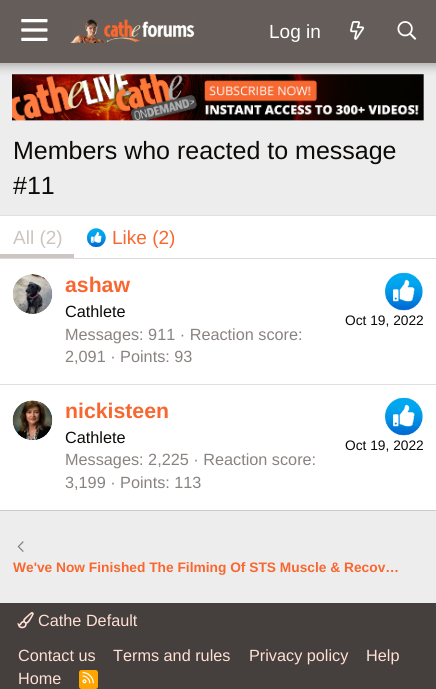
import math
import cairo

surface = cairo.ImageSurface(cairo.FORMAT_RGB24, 436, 689)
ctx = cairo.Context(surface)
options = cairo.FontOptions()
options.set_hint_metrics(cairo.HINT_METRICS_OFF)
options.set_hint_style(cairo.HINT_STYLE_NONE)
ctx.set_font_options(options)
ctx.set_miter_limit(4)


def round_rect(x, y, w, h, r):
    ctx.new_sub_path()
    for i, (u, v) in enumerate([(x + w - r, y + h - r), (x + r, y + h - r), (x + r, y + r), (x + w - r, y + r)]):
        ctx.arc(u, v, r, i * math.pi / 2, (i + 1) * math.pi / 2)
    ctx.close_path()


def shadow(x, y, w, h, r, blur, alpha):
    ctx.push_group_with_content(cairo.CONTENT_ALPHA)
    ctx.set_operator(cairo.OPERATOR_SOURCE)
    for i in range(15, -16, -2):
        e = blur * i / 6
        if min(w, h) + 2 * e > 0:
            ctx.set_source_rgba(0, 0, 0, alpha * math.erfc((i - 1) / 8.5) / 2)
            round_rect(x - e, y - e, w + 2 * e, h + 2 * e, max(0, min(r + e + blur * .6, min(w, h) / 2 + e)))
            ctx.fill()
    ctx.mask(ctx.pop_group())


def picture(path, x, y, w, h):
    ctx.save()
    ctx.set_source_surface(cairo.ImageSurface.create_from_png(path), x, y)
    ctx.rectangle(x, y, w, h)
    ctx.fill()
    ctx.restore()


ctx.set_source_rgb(0.929, 0.929, 0.929)
ctx.paint()
picture("img5.png", 12, 74, 412, 47)
ctx.set_source_rgb(0, 0, 0)
shadow(-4, -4, 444, 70, 0, 5, 0.3)
ctx.set_source_rgb(0.396, 0.365, 0.353)
ctx.rectangle(0, 0, 436, 63)
ctx.fill()
picture("img1.png", 21, 19, 27, 22)
picture("img2.png", 70, 19, 125, 24)
ctx.select_font_face("Liberation Sans")
ctx.set_font_size(19)
ctx.set_source_rgb(1, 1, 1)
ctx.move_to(269, 38)
ctx.show_text("Log in")
picture("img3.png", 350, 21, 15, 19)
picture("img4.png", 397, 21, 20, 19)
ctx.set_font_size(25)
ctx.set_source_rgb(0.047, 0.043, 0.039)
ctx.move_to(13, 159)
ctx.show_text("Members who reacted to message")
ctx.move_to(13, 194)
ctx.show_text("#11")
ctx.set_source_rgb(1, 1, 1)
ctx.rectangle(0, 216, 436, 294)
ctx.fill()
ctx.set_source_rgb(0.878, 0.878, 0.878)
ctx.rectangle(0, 215, 436, 1)
ctx.fill()
ctx.set_source_rgb(0.8, 0.8, 0.8)
ctx.rectangle(0, 510, 436, 1)
ctx.fill()
ctx.set_source_rgb(0.851, 0.851, 0.851)
ctx.rectangle(0, 258, 436, 1)
ctx.fill()
ctx.set_source_rgb(0.8, 0.773, 0.761)
ctx.rectangle(0, 254, 74, 4)
ctx.fill()
ctx.set_font_size(19)
ctx.move_to(13, 244)
ctx.show_text("All (2)")
picture("img6.png", 87, 228, 19, 19)
ctx.set_source_rgb(0.973, 0.404, 0.188)
ctx.move_to(112, 244)
ctx.show_text("Like (2)")
picture("img7.png", 12, 274, 41, 40)
ctx.select_font_face("Liberation Sans", cairo.FONT_SLANT_NORMAL, cairo.FONT_WEIGHT_BOLD)
ctx.set_font_size(21.25)
ctx.move_to(65, 292)
ctx.show_text("ashaw")
ctx.select_font_face("Liberation Sans")
ctx.set_font_size(16.25)
ctx.set_source_rgb(0.047, 0.043, 0.039)
ctx.move_to(65, 317)
ctx.show_text("Cathlete")
picture("img8.png", 385, 272, 38, 39)
ctx.set_font_size(13.75)
ctx.move_to(345, 325)
ctx.show_text("Oct 19, 2022")
ctx.set_font_size(16.25)
ctx.set_source_rgb(0.537, 0.514, 0.502)
ctx.move_to(65, 340)
ctx.show_text("Messages: 911 · Reaction score:")
ctx.move_to(65, 362)
ctx.show_text("2,091 · Points: 93")
ctx.set_source_rgb(0.878, 0.878, 0.878)
ctx.rectangle(0, 384, 436, 1)
ctx.fill()
picture("img9.png", 12, 400, 41, 40)
ctx.select_font_face("Liberation Sans", cairo.FONT_SLANT_NORMAL, cairo.FONT_WEIGHT_BOLD)
ctx.set_font_size(21.25)
ctx.set_source_rgb(0.973, 0.404, 0.188)
ctx.move_to(65, 418)
ctx.show_text("nickisteen")
ctx.select_font_face("Liberation Sans")
ctx.set_font_size(16.25)
ctx.set_source_rgb(0.047, 0.043, 0.039)
ctx.move_to(65, 443)
ctx.show_text("Cathlete")
picture("img8.png", 385, 397, 38, 39)
ctx.set_font_size(13.75)
ctx.move_to(345, 450)
ctx.show_text("Oct 19, 2022")
ctx.set_font_size(16.25)
ctx.set_source_rgb(0.537, 0.514, 0.502)
ctx.move_to(65, 465)
ctx.show_text("Messages: 2,225 · Reaction score:")
ctx.move_to(65, 488)
ctx.show_text("3,199 · Points: 113")
picture("img10.png", 17, 541, 7, 11)
ctx.select_font_face("Liberation Sans", cairo.FONT_SLANT_NORMAL, cairo.FONT_WEIGHT_BOLD)
ctx.set_font_size(13.75)
ctx.set_source_rgb(0.973, 0.404, 0.188)
ctx.move_to(13, 572)
ctx.show_text("We've Now Finished The Filming Of STS Muscle & Recov…")
ctx.set_source_rgb(0.271, 0.247, 0.239)
ctx.rectangle(0, 603, 436, 86)
ctx.fill()
picture("img11.png", 17, 612, 17, 17)
ctx.select_font_face("Liberation Sans")
ctx.set_font_size(16.25)
ctx.set_source_rgb(1, 0.878, 0.835)
ctx.move_to(38, 626)
ctx.show_text("Cathe Default")
ctx.move_to(18, 661)
ctx.show_text("Contact us")
ctx.move_to(113, 661)
ctx.show_text("Terms and rules")
ctx.move_to(249, 661)
ctx.show_text("Privacy policy")
ctx.move_to(366, 661)
ctx.show_text("Help")
ctx.move_to(18, 684)
ctx.show_text("Home")
ctx.set_source_rgb(1, 0.647, 0)
round_rect(79, 670, 19, 19, 2.5)
ctx.fill()
picture("img12.png", 82, 672, 12, 12)
surface.write_to_png("page.png")
